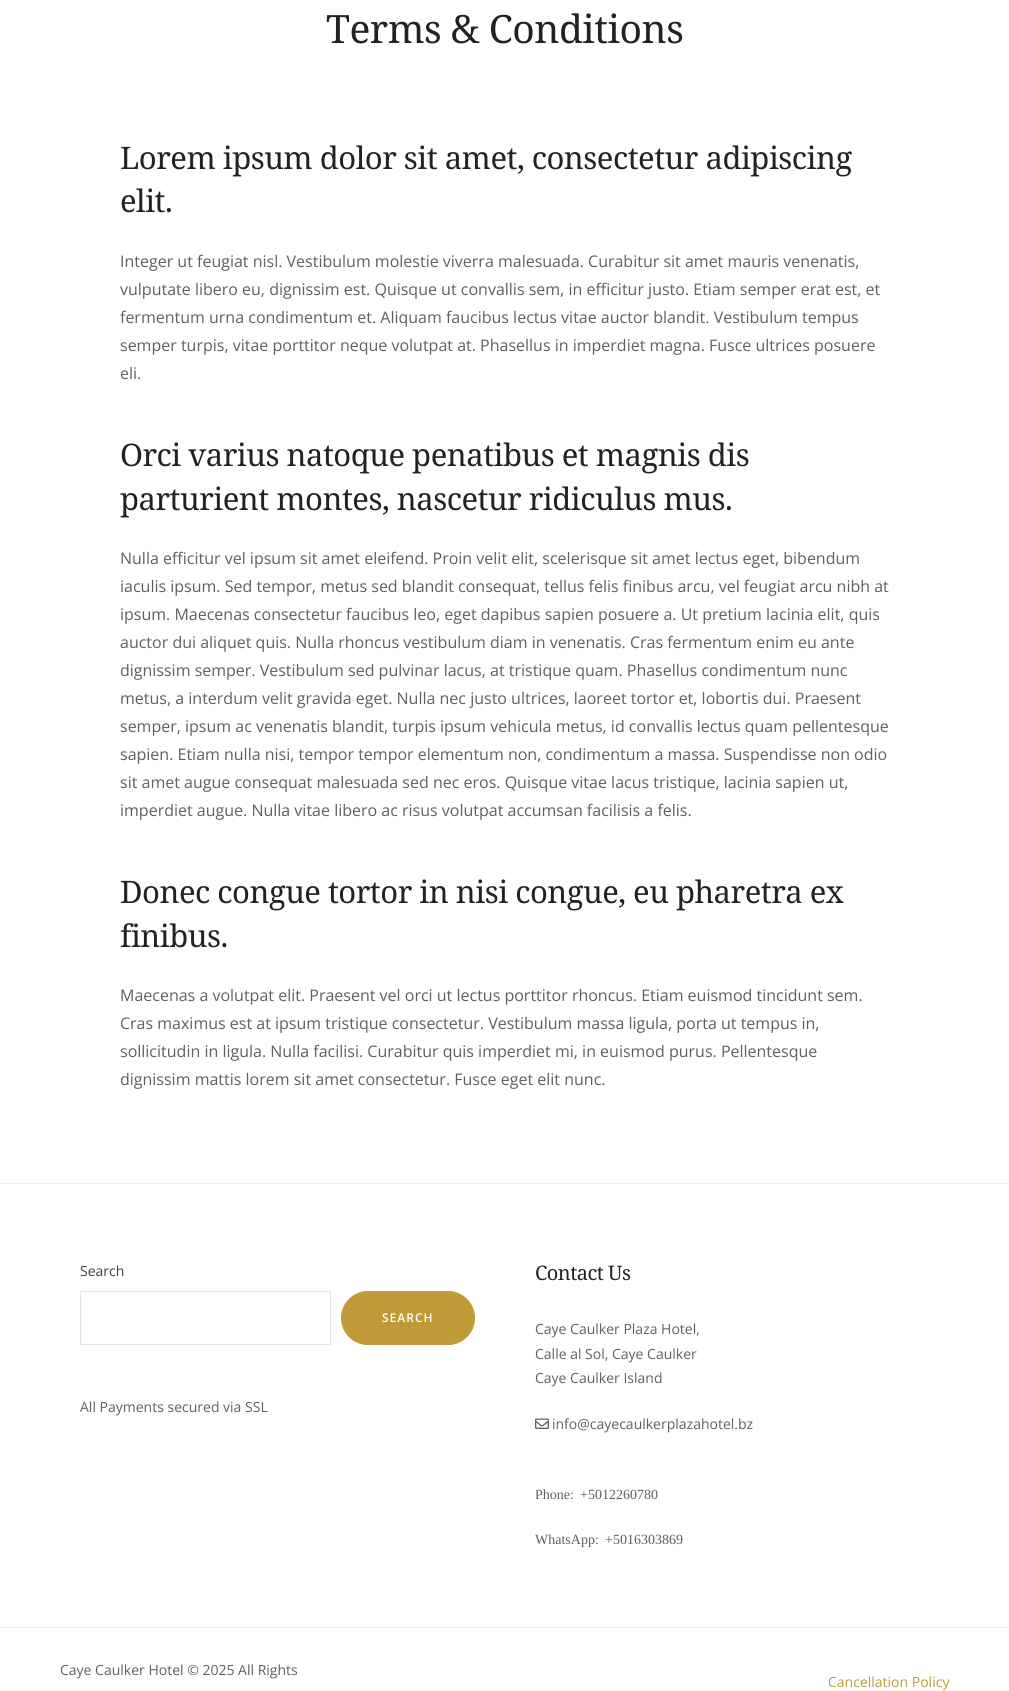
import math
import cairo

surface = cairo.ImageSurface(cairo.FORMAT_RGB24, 1009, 1691)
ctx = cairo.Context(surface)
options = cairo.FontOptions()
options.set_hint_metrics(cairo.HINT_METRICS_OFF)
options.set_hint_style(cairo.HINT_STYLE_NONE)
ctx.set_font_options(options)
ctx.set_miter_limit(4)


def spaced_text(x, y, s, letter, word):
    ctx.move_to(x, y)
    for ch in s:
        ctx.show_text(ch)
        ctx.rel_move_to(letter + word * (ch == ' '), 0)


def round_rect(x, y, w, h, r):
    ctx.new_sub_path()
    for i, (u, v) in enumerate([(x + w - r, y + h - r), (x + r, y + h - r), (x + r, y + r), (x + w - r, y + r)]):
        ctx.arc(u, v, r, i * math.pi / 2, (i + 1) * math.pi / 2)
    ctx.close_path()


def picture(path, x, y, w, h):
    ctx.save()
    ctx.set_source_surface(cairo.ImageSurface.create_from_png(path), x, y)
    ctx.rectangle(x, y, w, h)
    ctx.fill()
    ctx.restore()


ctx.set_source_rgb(1, 1, 1)
ctx.paint()
ctx.select_font_face("Noto Serif")
ctx.set_font_size(39)
ctx.set_source_rgb(0.133, 0.133, 0.133)
spaced_text(326, 43, "Terms & Conditions", -0.5, 0)
ctx.set_font_size(31)
spaced_text(120, 169, "Lorem ipsum dolor sit amet, consectetur adipiscing", -0.5, 0)
spaced_text(120, 212, "elit.", -0.5, 0)
ctx.select_font_face("Open Sans")
ctx.set_font_size(16)
ctx.set_source_rgb(0.373, 0.376, 0.376)
ctx.move_to(120, 267)
ctx.show_text("Integer ut feugiat nisl. Vestibulum molestie viverra malesuada. Curabitur sit amet mauris venenatis,")
ctx.move_to(120, 295)
ctx.show_text("vulputate libero eu, dignissim est. Quisque ut convallis sem, in efficitur justo. Etiam semper erat est, et")
ctx.move_to(120, 323)
ctx.show_text("fermentum urna condimentum et. Aliquam faucibus lectus vitae auctor blandit. Vestibulum tempus")
ctx.move_to(120, 351)
ctx.show_text("semper turpis, vitae porttitor neque volutpat at. Phasellus in imperdiet magna. Fusce ultrices posuere")
ctx.move_to(120, 379)
ctx.show_text("eli.")
ctx.select_font_face("Noto Serif")
ctx.set_font_size(31)
ctx.set_source_rgb(0.133, 0.133, 0.133)
spaced_text(120, 466, "Orci varius natoque penatibus et magnis dis", -0.5, 0)
spaced_text(120, 510, "parturient montes, nascetur ridiculus mus.", -0.5, 0)
ctx.select_font_face("Open Sans")
ctx.set_font_size(16)
ctx.set_source_rgb(0.373, 0.376, 0.376)
ctx.move_to(120, 564)
ctx.show_text("Nulla efficitur vel ipsum sit amet eleifend. Proin velit elit, scelerisque sit amet lectus eget, bibendum")
ctx.move_to(120, 592)
ctx.show_text("iaculis ipsum. Sed tempor, metus sed blandit consequat, tellus felis finibus arcu, vel feugiat arcu nibh at")
ctx.move_to(120, 620)
ctx.show_text("ipsum. Maecenas consectetur faucibus leo, eget dapibus sapien posuere a. Ut pretium lacinia elit, quis")
ctx.move_to(120, 648)
ctx.show_text("auctor dui aliquet quis. Nulla rhoncus vestibulum diam in venenatis. Cras fermentum enim eu ante")
ctx.move_to(120, 676)
ctx.show_text("dignissim semper. Vestibulum sed pulvinar lacus, at tristique quam. Phasellus condimentum nunc")
ctx.move_to(120, 704)
ctx.show_text("metus, a interdum velit gravida eget. Nulla nec justo ultrices, laoreet tortor et, lobortis dui. Praesent")
ctx.move_to(120, 732)
ctx.show_text("semper, ipsum ac venenatis blandit, turpis ipsum vehicula metus, id convallis lectus quam pellentesque")
ctx.move_to(120, 760)
ctx.show_text("sapien. Etiam nulla nisi, tempor tempor elementum non, condimentum a massa. Suspendisse non odio")
ctx.move_to(120, 788)
ctx.show_text("sit amet augue consequat malesuada sed nec eros. Quisque vitae lacus tristique, lacinia sapien ut,")
ctx.move_to(120, 816)
ctx.show_text("imperdiet augue. Nulla vitae libero ac risus volutpat accumsan facilisis a felis.")
ctx.select_font_face("Noto Serif")
ctx.set_font_size(31)
ctx.set_source_rgb(0.133, 0.133, 0.133)
spaced_text(120, 903, "Donec congue tortor in nisi congue, eu pharetra ex", -0.5, 0)
spaced_text(120, 947, "finibus.", -0.5, 0)
ctx.select_font_face("Open Sans")
ctx.set_font_size(16)
ctx.set_source_rgb(0.373, 0.376, 0.376)
ctx.move_to(120, 1001)
ctx.show_text("Maecenas a volutpat elit. Praesent vel orci ut lectus porttitor rhoncus. Etiam euismod tincidunt sem.")
ctx.move_to(120, 1029)
ctx.show_text("Cras maximus est at ipsum tristique consectetur. Vestibulum massa ligula, porta ut tempus in,")
ctx.move_to(120, 1057)
ctx.show_text("sollicitudin in ligula. Nulla facilisi. Curabitur quis imperdiet mi, in euismod purus. Pellentesque")
ctx.move_to(120, 1085)
ctx.show_text("dignissim mattis lorem sit amet consectetur. Fusce eget elit nunc.")
ctx.set_source_rgb(0.929, 0.929, 0.929)
ctx.rectangle(0, 1183, 1009, 1)
ctx.fill()
ctx.set_font_size(14)
ctx.set_source_rgb(0.243, 0.247, 0.275)
ctx.move_to(80, 1276)
ctx.show_text("Search")
ctx.rectangle(80.5, 1291.5, 250, 53)
ctx.set_source_rgb(0.894, 0.894, 0.894)
ctx.set_line_width(1)
ctx.stroke()
ctx.set_source_rgb(0.757, 0.604, 0.22)
round_rect(341.5, 1291.5, 133, 53, 26.5)
ctx.fill_preserve()
ctx.stroke()
ctx.select_font_face("Open Sans SemiBold")
ctx.set_font_size(12)
ctx.set_source_rgb(1, 1, 1)
spaced_text(382, 1322, "SEARCH", 1, 0)
ctx.select_font_face("Open Sans")
ctx.set_font_size(14)
ctx.set_source_rgb(0.373, 0.376, 0.376)
ctx.move_to(80, 1412)
ctx.show_text("All Payments secured via SSL")
ctx.select_font_face("Noto Serif")
ctx.set_font_size(20)
ctx.set_source_rgb(0.133, 0.133, 0.133)
spaced_text(535, 1280, "Contact Us", -0.5, 0)
ctx.select_font_face("Open Sans")
ctx.set_font_size(14)
ctx.set_source_rgb(0.373, 0.376, 0.376)
ctx.move_to(535, 1334)
ctx.show_text("Caye Caulker Plaza Hotel,")
ctx.move_to(535, 1359)
ctx.show_text("Calle al Sol, Caye Caulker")
ctx.move_to(535, 1383)
ctx.show_text("Caye Caulker Island")
picture("img1.png", 535, 1418, 14, 11)
ctx.move_to(552, 1429)
ctx.show_text("info@cayecaulkerplazahotel.bz")
ctx.select_font_face("Liberation Serif")
ctx.move_to(535, 1499)
ctx.show_text("Phone:")
ctx.move_to(580, 1499)
ctx.show_text("+5012260780")
ctx.move_to(535, 1544)
ctx.show_text("WhatsApp:")
ctx.move_to(605, 1544)
ctx.show_text("+5016303869")
ctx.set_source_rgb(0.929, 0.929, 0.929)
ctx.rectangle(0, 1627, 1009, 1)
ctx.fill()
ctx.select_font_face("Open Sans")
ctx.set_source_rgb(0.373, 0.376, 0.376)
ctx.move_to(60, 1675)
ctx.show_text("Caye Caulker Hotel © 2025 All Rights")
ctx.set_source_rgb(0.757, 0.604, 0.22)
ctx.move_to(828, 1687)
ctx.show_text("Cancellation Policy")
surface.write_to_png("page.png")
